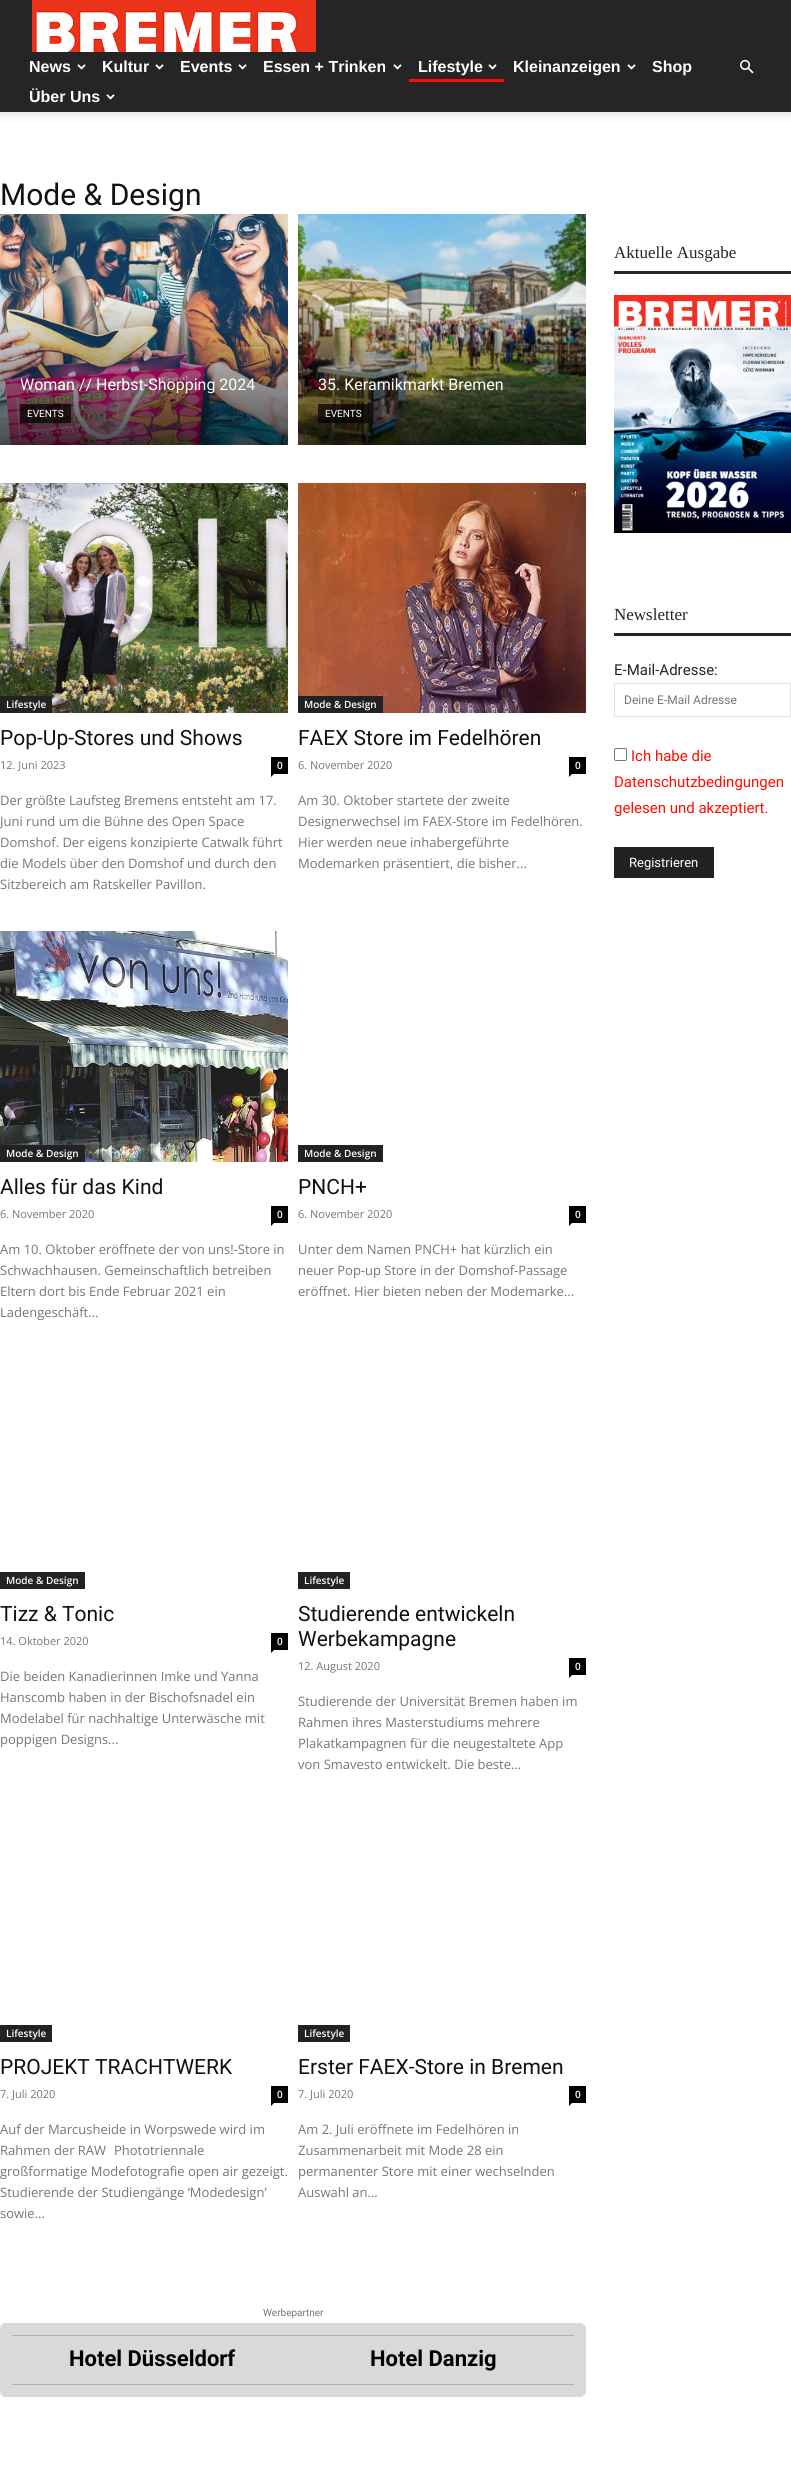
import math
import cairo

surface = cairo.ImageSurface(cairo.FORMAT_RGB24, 791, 2481)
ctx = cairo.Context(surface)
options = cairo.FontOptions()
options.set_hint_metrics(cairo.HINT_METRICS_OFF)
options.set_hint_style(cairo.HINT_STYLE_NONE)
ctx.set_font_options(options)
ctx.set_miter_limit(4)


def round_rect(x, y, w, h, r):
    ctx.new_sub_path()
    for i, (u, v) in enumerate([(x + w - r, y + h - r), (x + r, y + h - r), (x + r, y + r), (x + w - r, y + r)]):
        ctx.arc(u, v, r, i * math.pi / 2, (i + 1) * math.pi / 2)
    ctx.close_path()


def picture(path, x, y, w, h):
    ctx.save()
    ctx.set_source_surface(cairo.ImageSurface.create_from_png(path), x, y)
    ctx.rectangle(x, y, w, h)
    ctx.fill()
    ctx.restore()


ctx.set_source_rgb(1, 1, 1)
ctx.paint()
ctx.set_source_rgb(0.145, 0.145, 0.145)
ctx.rectangle(0, 0, 791, 112)
ctx.fill()
picture("img1.png", 32, 0, 284, 52)
ctx.select_font_face("Liberation Sans", cairo.FONT_SLANT_NORMAL, cairo.FONT_WEIGHT_BOLD)
ctx.set_font_size(16)
ctx.set_source_rgb(1, 1, 1)
ctx.move_to(29, 72)
ctx.show_text("News")
picture("img2.png", 77, 64, 9, 6)
ctx.move_to(102, 72)
ctx.show_text("Kultur")
picture("img2.png", 155, 64, 9, 6)
ctx.move_to(180, 72)
ctx.show_text("Events")
picture("img2.png", 238, 64, 9, 6)
ctx.move_to(263, 72)
ctx.show_text("Essen + Trinken")
picture("img2.png", 393, 64, 9, 6)
ctx.move_to(418, 72)
ctx.show_text("Lifestyle")
picture("img2.png", 488, 64, 9, 6)
ctx.set_source_rgb(1, 0.051, 0)
ctx.rectangle(409, 79, 95, 3)
ctx.fill()
ctx.set_source_rgb(1, 1, 1)
ctx.move_to(513, 72)
ctx.show_text("Kleinanzeigen")
picture("img2.png", 627, 64, 9, 6)
ctx.move_to(652, 72)
ctx.show_text("Shop")
ctx.move_to(29, 102)
ctx.show_text("Über Uns")
picture("img2.png", 106, 94, 9, 6)
picture("img3.png", 740, 59, 14, 15)
picture("img4.png", 0, 112, 791, 9)
ctx.select_font_face("Roboto")
ctx.set_font_size(30)
ctx.set_source_rgb(0.067, 0.067, 0.067)
ctx.move_to(0, 205)
ctx.show_text("Mode & Design")
picture("img5.png", 0, 214, 288, 231)
ctx.set_font_size(16)
ctx.set_source_rgb(1, 1, 1)
ctx.move_to(20, 390)
ctx.show_text("Woman // Herbst-Shopping 2024")
ctx.set_source_rgba(0, 0, 0, 0.7)
ctx.rectangle(20, 404, 51, 19)
ctx.fill()
ctx.set_font_size(10)
ctx.set_source_rgb(1, 1, 1)
ctx.move_to(27, 417)
ctx.show_text("EVENTS")
picture("img6.png", 298, 214, 288, 231)
ctx.set_font_size(16)
ctx.move_to(318, 390)
ctx.show_text("35. Keramikmarkt Bremen")
ctx.set_source_rgba(0, 0, 0, 0.7)
ctx.rectangle(318, 404, 51, 19)
ctx.fill()
ctx.set_font_size(10)
ctx.set_source_rgb(1, 1, 1)
ctx.move_to(325, 417)
ctx.show_text("EVENTS")
picture("img7.png", 0, 483, 288, 230)
ctx.set_source_rgb(0.133, 0.133, 0.133)
ctx.rectangle(0, 696, 52, 17)
ctx.fill()
ctx.select_font_face("Open Sans SemiBold")
ctx.set_source_rgb(1, 1, 1)
ctx.move_to(6, 708)
ctx.show_text("Lifestyle")
ctx.select_font_face("Roboto")
ctx.set_font_size(21)
ctx.set_source_rgb(0.067, 0.067, 0.067)
ctx.move_to(0, 745)
ctx.show_text("Pop-Up-Stores und Shows")
ctx.select_font_face("Open Sans")
ctx.set_font_size(11)
ctx.set_source_rgb(0.463, 0.463, 0.463)
ctx.move_to(0, 769)
ctx.show_text("12. Juni 2023")
ctx.set_source_rgb(0, 0, 0)
ctx.rectangle(271, 757, 17, 17)
ctx.fill()
ctx.select_font_face("Open Sans SemiBold")
ctx.set_font_size(10)
ctx.set_source_rgb(1, 1, 1)
ctx.move_to(277, 769)
ctx.show_text("0")
ctx.set_source_rgb(0, 0, 0)
ctx.new_path()
ctx.move_to(271, 774)
ctx.line_to(274, 774)
ctx.line_to(271, 777)
ctx.close_path()
ctx.fill()
ctx.select_font_face("Open Sans")
ctx.set_font_size(13)
ctx.set_source_rgb(0.463, 0.463, 0.463)
ctx.move_to(0, 805)
ctx.show_text("Der größte Laufsteg Bremens entsteht am 17.")
ctx.move_to(0, 826)
ctx.show_text("Juni rund um die Bühne des Open Space")
ctx.move_to(0, 847)
ctx.show_text("Domshof. Der eigens konzipierte Catwalk führt")
ctx.move_to(0, 868)
ctx.show_text("die Models über den Domshof und durch den")
ctx.move_to(0, 889)
ctx.show_text("Sitzbereich am Ratskeller Pavillon.")
picture("img8.png", 298, 483, 288, 230)
ctx.set_source_rgb(0.133, 0.133, 0.133)
ctx.rectangle(298, 696, 85, 17)
ctx.fill()
ctx.select_font_face("Open Sans SemiBold")
ctx.set_font_size(10)
ctx.set_source_rgb(1, 1, 1)
ctx.move_to(304, 708)
ctx.show_text("Mode & Design")
ctx.select_font_face("Roboto")
ctx.set_font_size(21)
ctx.set_source_rgb(0.067, 0.067, 0.067)
ctx.move_to(298, 745)
ctx.show_text("FAEX Store im Fedelhören")
ctx.select_font_face("Open Sans")
ctx.set_font_size(11)
ctx.set_source_rgb(0.463, 0.463, 0.463)
ctx.move_to(298, 769)
ctx.show_text("6. November 2020")
ctx.set_source_rgb(0, 0, 0)
ctx.rectangle(569, 757, 17, 17)
ctx.fill()
ctx.select_font_face("Open Sans SemiBold")
ctx.set_font_size(10)
ctx.set_source_rgb(1, 1, 1)
ctx.move_to(575, 769)
ctx.show_text("0")
ctx.set_source_rgb(0, 0, 0)
ctx.new_path()
ctx.move_to(569, 774)
ctx.line_to(572, 774)
ctx.line_to(569, 777)
ctx.close_path()
ctx.fill()
ctx.select_font_face("Open Sans")
ctx.set_font_size(13)
ctx.set_source_rgb(0.463, 0.463, 0.463)
ctx.move_to(298, 805)
ctx.show_text("Am 30. Oktober startete der zweite")
ctx.move_to(298, 826)
ctx.show_text("Designerwechsel im FAEX-Store im Fedelhören.")
ctx.move_to(298, 847)
ctx.show_text("Hier werden neue inhabergeführte")
ctx.move_to(298, 868)
ctx.show_text("Modemarken präsentiert, die bisher...")
picture("img9.png", 0, 931, 288, 231)
ctx.set_source_rgb(0.133, 0.133, 0.133)
ctx.rectangle(0, 1145, 85, 17)
ctx.fill()
ctx.select_font_face("Open Sans SemiBold")
ctx.set_font_size(10)
ctx.set_source_rgb(1, 1, 1)
ctx.move_to(6, 1157)
ctx.show_text("Mode & Design")
ctx.select_font_face("Roboto")
ctx.set_font_size(21)
ctx.set_source_rgb(0.067, 0.067, 0.067)
ctx.move_to(0, 1194)
ctx.show_text("Alles für das Kind")
ctx.select_font_face("Open Sans")
ctx.set_font_size(11)
ctx.set_source_rgb(0.463, 0.463, 0.463)
ctx.move_to(0, 1218)
ctx.show_text("6. November 2020")
ctx.set_source_rgb(0, 0, 0)
ctx.rectangle(271, 1206, 17, 17)
ctx.fill()
ctx.select_font_face("Open Sans SemiBold")
ctx.set_font_size(10)
ctx.set_source_rgb(1, 1, 1)
ctx.move_to(277, 1218)
ctx.show_text("0")
ctx.set_source_rgb(0, 0, 0)
ctx.new_path()
ctx.move_to(271, 1223)
ctx.line_to(274, 1223)
ctx.line_to(271, 1226)
ctx.close_path()
ctx.fill()
ctx.select_font_face("Open Sans")
ctx.set_font_size(13)
ctx.set_source_rgb(0.463, 0.463, 0.463)
ctx.move_to(0, 1254)
ctx.show_text("Am 10. Oktober eröffnete der von uns!-Store in")
ctx.move_to(0, 1275)
ctx.show_text("Schwachhausen. Gemeinschaftlich betreiben")
ctx.move_to(0, 1296)
ctx.show_text("Eltern dort bis Ende Februar 2021 ein")
ctx.move_to(0, 1317)
ctx.show_text("Ladengeschäft...")
ctx.set_source_rgb(0.133, 0.133, 0.133)
ctx.rectangle(298, 1145, 85, 17)
ctx.fill()
ctx.select_font_face("Open Sans SemiBold")
ctx.set_font_size(10)
ctx.set_source_rgb(1, 1, 1)
ctx.move_to(304, 1157)
ctx.show_text("Mode & Design")
ctx.select_font_face("Roboto")
ctx.set_font_size(21)
ctx.set_source_rgb(0.067, 0.067, 0.067)
ctx.move_to(298, 1194)
ctx.show_text("PNCH+")
ctx.select_font_face("Open Sans")
ctx.set_font_size(11)
ctx.set_source_rgb(0.463, 0.463, 0.463)
ctx.move_to(298, 1218)
ctx.show_text("6. November 2020")
ctx.set_source_rgb(0, 0, 0)
ctx.rectangle(569, 1206, 17, 17)
ctx.fill()
ctx.select_font_face("Open Sans SemiBold")
ctx.set_font_size(10)
ctx.set_source_rgb(1, 1, 1)
ctx.move_to(575, 1218)
ctx.show_text("0")
ctx.set_source_rgb(0, 0, 0)
ctx.new_path()
ctx.move_to(569, 1223)
ctx.line_to(572, 1223)
ctx.line_to(569, 1226)
ctx.close_path()
ctx.fill()
ctx.select_font_face("Open Sans")
ctx.set_font_size(13)
ctx.set_source_rgb(0.463, 0.463, 0.463)
ctx.move_to(298, 1254)
ctx.show_text("Unter dem Namen PNCH+ hat kürzlich ein")
ctx.move_to(298, 1275)
ctx.show_text("neuer Pop-up Store in der Domshof-Passage")
ctx.move_to(298, 1296)
ctx.show_text("eröffnet. Hier bieten neben der Modemarke...")
ctx.set_source_rgb(0.133, 0.133, 0.133)
ctx.rectangle(0, 1572, 85, 17)
ctx.fill()
ctx.select_font_face("Open Sans SemiBold")
ctx.set_font_size(10)
ctx.set_source_rgb(1, 1, 1)
ctx.move_to(6, 1584)
ctx.show_text("Mode & Design")
ctx.select_font_face("Roboto")
ctx.set_font_size(21)
ctx.set_source_rgb(0.067, 0.067, 0.067)
ctx.move_to(0, 1621)
ctx.show_text("Tizz & Tonic")
ctx.select_font_face("Open Sans")
ctx.set_font_size(11)
ctx.set_source_rgb(0.463, 0.463, 0.463)
ctx.move_to(0, 1645)
ctx.show_text("14. Oktober 2020")
ctx.set_source_rgb(0, 0, 0)
ctx.rectangle(271, 1633, 17, 17)
ctx.fill()
ctx.select_font_face("Open Sans SemiBold")
ctx.set_font_size(10)
ctx.set_source_rgb(1, 1, 1)
ctx.move_to(277, 1645)
ctx.show_text("0")
ctx.set_source_rgb(0, 0, 0)
ctx.new_path()
ctx.move_to(271, 1650)
ctx.line_to(274, 1650)
ctx.line_to(271, 1653)
ctx.close_path()
ctx.fill()
ctx.select_font_face("Open Sans")
ctx.set_font_size(13)
ctx.set_source_rgb(0.463, 0.463, 0.463)
ctx.move_to(0, 1681)
ctx.show_text("Die beiden Kanadierinnen Imke und Yanna")
ctx.move_to(0, 1702)
ctx.show_text("Hanscomb haben in der Bischofsnadel ein")
ctx.move_to(0, 1723)
ctx.show_text("Modelabel für nachhaltige Unterwäsche mit")
ctx.move_to(0, 1744)
ctx.show_text("poppigen Designs...")
ctx.set_source_rgb(0.133, 0.133, 0.133)
ctx.rectangle(298, 1572, 52, 17)
ctx.fill()
ctx.select_font_face("Open Sans SemiBold")
ctx.set_font_size(10)
ctx.set_source_rgb(1, 1, 1)
ctx.move_to(304, 1584)
ctx.show_text("Lifestyle")
ctx.select_font_face("Roboto")
ctx.set_font_size(21)
ctx.set_source_rgb(0.067, 0.067, 0.067)
ctx.move_to(298, 1621)
ctx.show_text("Studierende entwickeln")
ctx.move_to(298, 1646)
ctx.show_text("Werbekampagne")
ctx.select_font_face("Open Sans")
ctx.set_font_size(11)
ctx.set_source_rgb(0.463, 0.463, 0.463)
ctx.move_to(298, 1670)
ctx.show_text("12. August 2020")
ctx.set_source_rgb(0, 0, 0)
ctx.rectangle(569, 1658, 17, 17)
ctx.fill()
ctx.select_font_face("Open Sans SemiBold")
ctx.set_font_size(10)
ctx.set_source_rgb(1, 1, 1)
ctx.move_to(575, 1670)
ctx.show_text("0")
ctx.set_source_rgb(0, 0, 0)
ctx.new_path()
ctx.move_to(569, 1675)
ctx.line_to(572, 1675)
ctx.line_to(569, 1678)
ctx.close_path()
ctx.fill()
ctx.select_font_face("Open Sans")
ctx.set_font_size(13)
ctx.set_source_rgb(0.463, 0.463, 0.463)
ctx.move_to(298, 1706)
ctx.show_text("Studierende der Universität Bremen haben im")
ctx.move_to(298, 1727)
ctx.show_text("Rahmen ihres Masterstudiums mehrere")
ctx.move_to(298, 1748)
ctx.show_text("Plakatkampagnen für die neugestaltete App")
ctx.move_to(298, 1769)
ctx.show_text("von Smavesto entwickelt. Die beste...")
ctx.set_source_rgb(0.133, 0.133, 0.133)
ctx.rectangle(0, 2025, 52, 17)
ctx.fill()
ctx.select_font_face("Open Sans SemiBold")
ctx.set_font_size(10)
ctx.set_source_rgb(1, 1, 1)
ctx.move_to(6, 2037)
ctx.show_text("Lifestyle")
ctx.select_font_face("Roboto")
ctx.set_font_size(21)
ctx.set_source_rgb(0.067, 0.067, 0.067)
ctx.move_to(0, 2074)
ctx.show_text("PROJEKT TRACHTWERK")
ctx.select_font_face("Open Sans")
ctx.set_font_size(11)
ctx.set_source_rgb(0.463, 0.463, 0.463)
ctx.move_to(0, 2098)
ctx.show_text("7. Juli 2020")
ctx.set_source_rgb(0, 0, 0)
ctx.rectangle(271, 2086, 17, 17)
ctx.fill()
ctx.select_font_face("Open Sans SemiBold")
ctx.set_font_size(10)
ctx.set_source_rgb(1, 1, 1)
ctx.move_to(277, 2098)
ctx.show_text("0")
ctx.set_source_rgb(0, 0, 0)
ctx.new_path()
ctx.move_to(271, 2103)
ctx.line_to(274, 2103)
ctx.line_to(271, 2106)
ctx.close_path()
ctx.fill()
ctx.select_font_face("Open Sans")
ctx.set_font_size(13)
ctx.set_source_rgb(0.463, 0.463, 0.463)
ctx.move_to(0, 2134)
ctx.show_text("Auf der Marcusheide in Worpswede wird im")
ctx.move_to(0, 2155)
ctx.show_text("Rahmen der RAW Phototriennale")
ctx.move_to(0, 2176)
ctx.show_text("großformatige Modefotografie open air gezeigt.")
ctx.move_to(0, 2197)
ctx.show_text("Studierende der Studiengänge ‘Modedesign’")
ctx.move_to(0, 2218)
ctx.show_text("sowie...")
ctx.set_source_rgb(0.133, 0.133, 0.133)
ctx.rectangle(298, 2025, 52, 17)
ctx.fill()
ctx.select_font_face("Open Sans SemiBold")
ctx.set_font_size(10)
ctx.set_source_rgb(1, 1, 1)
ctx.move_to(304, 2037)
ctx.show_text("Lifestyle")
ctx.select_font_face("Roboto")
ctx.set_font_size(21)
ctx.set_source_rgb(0.067, 0.067, 0.067)
ctx.move_to(298, 2074)
ctx.show_text("Erster FAEX-Store in Bremen")
ctx.select_font_face("Open Sans")
ctx.set_font_size(11)
ctx.set_source_rgb(0.463, 0.463, 0.463)
ctx.move_to(298, 2098)
ctx.show_text("7. Juli 2020")
ctx.set_source_rgb(0, 0, 0)
ctx.rectangle(569, 2086, 17, 17)
ctx.fill()
ctx.select_font_face("Open Sans SemiBold")
ctx.set_font_size(10)
ctx.set_source_rgb(1, 1, 1)
ctx.move_to(575, 2098)
ctx.show_text("0")
ctx.set_source_rgb(0, 0, 0)
ctx.new_path()
ctx.move_to(569, 2103)
ctx.line_to(572, 2103)
ctx.line_to(569, 2106)
ctx.close_path()
ctx.fill()
ctx.select_font_face("Open Sans")
ctx.set_font_size(13)
ctx.set_source_rgb(0.463, 0.463, 0.463)
ctx.move_to(298, 2134)
ctx.show_text("Am 2. Juli eröffnete im Fedelhören in")
ctx.move_to(298, 2155)
ctx.show_text("Zusammenarbeit mit Mode 28 ein")
ctx.move_to(298, 2176)
ctx.show_text("permanenter Store mit einer wechselnden")
ctx.move_to(298, 2197)
ctx.show_text("Auswahl an...")
ctx.select_font_face("Roboto")
ctx.set_font_size(10)
ctx.move_to(263, 2316)
ctx.show_text("Werbepartner")
ctx.set_source_rgb(0.851, 0.851, 0.851)
round_rect(0, 2323, 586, 74, 6)
ctx.fill()
ctx.set_source_rgb(0.69, 0.69, 0.69)
ctx.rectangle(12, 2335, 562, 1)
ctx.fill()
ctx.rectangle(12, 2384, 562, 1)
ctx.fill()
ctx.select_font_face("Roboto", cairo.FONT_SLANT_NORMAL, cairo.FONT_WEIGHT_BOLD)
ctx.set_font_size(22)
ctx.set_source_rgb(0, 0, 0)
ctx.move_to(69, 2366)
ctx.show_text("Hotel Düsseldorf")
ctx.move_to(370, 2366)
ctx.show_text("Hotel Danzig")
ctx.select_font_face("Liberation Serif")
ctx.set_font_size(17)
ctx.set_source_rgb(0.145, 0.145, 0.145)
ctx.move_to(614, 258)
ctx.show_text("Aktuelle Ausgabe")
ctx.rectangle(614, 271, 177, 3)
ctx.fill()
picture("img10.png", 614, 295, 177, 238)
ctx.move_to(614, 620)
ctx.show_text("Newsletter")
ctx.rectangle(614, 633, 177, 3)
ctx.fill()
ctx.select_font_face("Roboto")
ctx.set_font_size(15)
ctx.move_to(614, 675)
ctx.show_text("E-Mail-Adresse:")
ctx.rectangle(614.5, 683.5, 176, 33)
ctx.set_source_rgb(0.882, 0.882, 0.882)
ctx.set_line_width(1)
ctx.stroke()
ctx.set_font_size(12)
ctx.set_source_rgb(0.463, 0.463, 0.463)
ctx.move_to(624, 704)
ctx.show_text("Deine E-Mail Adresse")
round_rect(614.5, 748.5, 12, 12, 1.5)
ctx.stroke()
ctx.set_font_size(15)
ctx.set_source_rgb(1, 0.051, 0)
ctx.move_to(631, 761)
ctx.show_text("Ich habe die")
ctx.move_to(614, 787)
ctx.show_text("Datenschutzbedingungen")
ctx.move_to(614, 813)
ctx.show_text("gelesen und akzeptiert.")
ctx.set_source_rgb(0.133, 0.133, 0.133)
ctx.rectangle(614, 847, 100, 31)
ctx.fill()
ctx.set_font_size(13)
ctx.set_source_rgb(1, 1, 1)
ctx.move_to(629, 867)
ctx.show_text("Registrieren")
surface.write_to_png("page.png")
